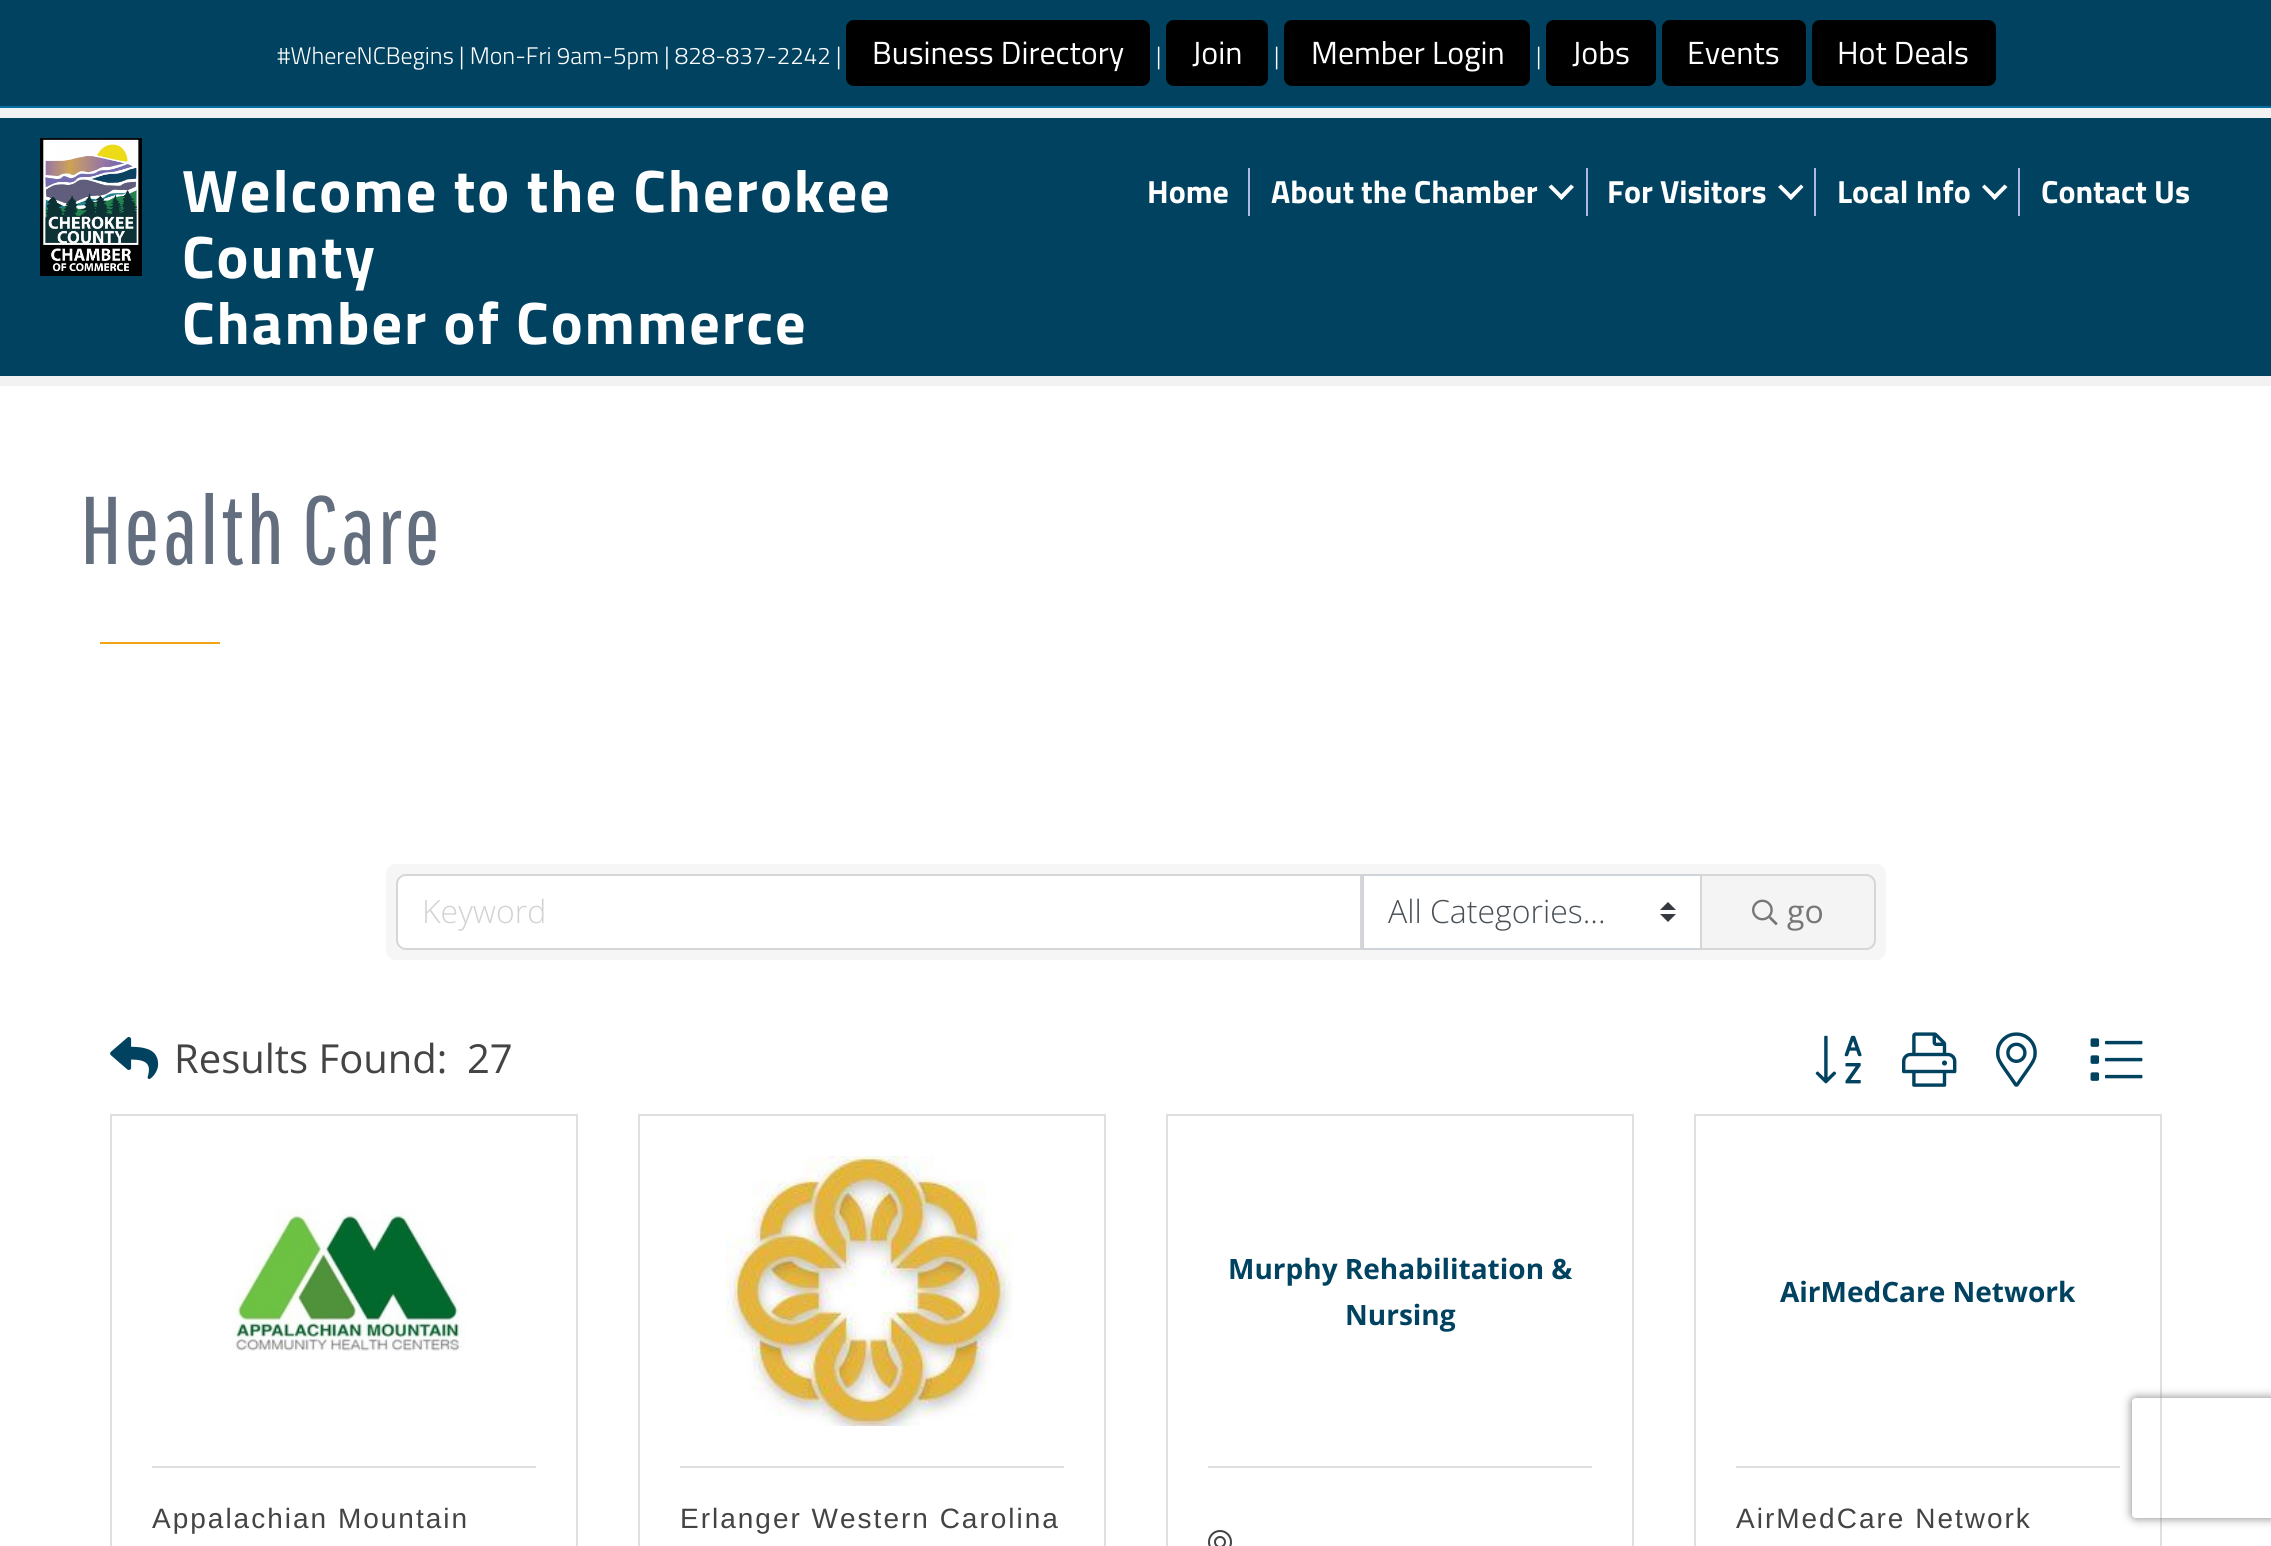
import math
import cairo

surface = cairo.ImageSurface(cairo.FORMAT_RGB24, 2271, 1546)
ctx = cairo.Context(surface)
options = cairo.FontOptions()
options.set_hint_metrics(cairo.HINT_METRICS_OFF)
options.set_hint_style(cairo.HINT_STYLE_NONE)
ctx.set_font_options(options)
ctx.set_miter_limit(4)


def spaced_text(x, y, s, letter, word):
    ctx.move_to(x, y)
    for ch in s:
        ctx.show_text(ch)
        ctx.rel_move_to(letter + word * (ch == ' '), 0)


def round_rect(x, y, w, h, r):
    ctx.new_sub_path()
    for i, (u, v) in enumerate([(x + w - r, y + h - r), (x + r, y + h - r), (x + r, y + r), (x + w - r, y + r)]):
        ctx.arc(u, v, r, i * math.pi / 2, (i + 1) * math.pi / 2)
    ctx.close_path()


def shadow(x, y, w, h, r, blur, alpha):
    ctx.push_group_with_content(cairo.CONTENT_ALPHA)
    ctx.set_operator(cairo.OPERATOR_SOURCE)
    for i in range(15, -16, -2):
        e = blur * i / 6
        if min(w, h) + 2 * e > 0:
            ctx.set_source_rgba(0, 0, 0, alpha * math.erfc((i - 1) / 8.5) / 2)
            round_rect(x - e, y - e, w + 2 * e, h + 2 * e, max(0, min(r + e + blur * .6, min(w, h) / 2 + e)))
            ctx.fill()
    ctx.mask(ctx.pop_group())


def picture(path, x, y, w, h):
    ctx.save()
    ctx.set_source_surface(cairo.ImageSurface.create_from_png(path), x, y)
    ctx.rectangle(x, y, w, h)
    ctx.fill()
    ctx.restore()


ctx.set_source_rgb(0.949, 0.949, 0.949)
ctx.paint()
ctx.set_source_rgb(0, 0.259, 0.376)
ctx.rectangle(0, 0, 2271, 106)
ctx.fill()
ctx.set_source_rgb(0, 0.439, 0.635)
ctx.rectangle(0, 106, 2271, 2)
ctx.fill()
ctx.select_font_face("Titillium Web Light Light")
ctx.set_font_size(24)
ctx.set_source_rgb(1, 1, 1)
ctx.move_to(277, 64)
ctx.show_text("#WhereNCBegins | Mon-Fri 9am-5pm | 828-837-2242 |")
ctx.set_source_rgb(0, 0, 0)
round_rect(847, 21, 302, 64, 7)
ctx.fill_preserve()
ctx.stroke()
ctx.select_font_face("Titillium Web")
ctx.set_font_size(32)
ctx.set_source_rgb(1, 1, 1)
ctx.move_to(872, 64)
ctx.show_text("Business Directory")
ctx.select_font_face("Titillium Web Light Light")
ctx.set_font_size(24)
ctx.move_to(1156, 64)
ctx.show_text("|")
ctx.set_source_rgb(0, 0, 0)
round_rect(1167, 21, 100, 64, 7)
ctx.fill_preserve()
ctx.stroke()
ctx.select_font_face("Titillium Web")
ctx.set_font_size(32)
ctx.set_source_rgb(1, 1, 1)
ctx.move_to(1192, 64)
ctx.show_text("Join")
ctx.select_font_face("Titillium Web Light Light")
ctx.set_font_size(24)
ctx.move_to(1274, 64)
ctx.show_text("|")
ctx.set_source_rgb(0, 0, 0)
round_rect(1285, 21, 244, 64, 7)
ctx.fill_preserve()
ctx.stroke()
ctx.select_font_face("Titillium Web")
ctx.set_font_size(32)
ctx.set_source_rgb(1, 1, 1)
ctx.move_to(1311, 64)
ctx.show_text("Member Login")
ctx.select_font_face("Titillium Web Light Light")
ctx.set_font_size(24)
ctx.move_to(1536, 64)
ctx.show_text("|")
ctx.set_source_rgb(0, 0, 0)
round_rect(1547, 21, 108, 64, 7)
ctx.fill_preserve()
ctx.stroke()
ctx.select_font_face("Titillium Web")
ctx.set_font_size(32)
ctx.set_source_rgb(1, 1, 1)
ctx.move_to(1572, 64)
ctx.show_text("Jobs")
ctx.set_source_rgb(0, 0, 0)
round_rect(1663, 21, 142, 64, 7)
ctx.fill_preserve()
ctx.stroke()
ctx.set_source_rgb(1, 1, 1)
ctx.move_to(1687, 64)
ctx.show_text("Events")
ctx.set_source_rgb(0, 0, 0)
round_rect(1813, 21, 182, 64, 7)
ctx.fill_preserve()
ctx.stroke()
ctx.set_source_rgb(1, 1, 1)
ctx.move_to(1837, 64)
ctx.show_text("Hot Deals")
ctx.set_source_rgb(0, 0.259, 0.376)
ctx.rectangle(0, 118, 2271, 258)
ctx.fill()
picture("img1.png", 40, 138, 102, 138)
ctx.select_font_face("Titillium Web", cairo.FONT_SLANT_NORMAL, cairo.FONT_WEIGHT_BOLD)
ctx.set_font_size(60)
ctx.set_source_rgb(1, 1, 1)
spaced_text(182, 212, "Welcome to the Cherokee", 2, 0)
spaced_text(182, 278, "County", 2, 0)
spaced_text(182, 344, "Chamber of Commerce", 2, 0)
ctx.set_font_size(32)
ctx.move_to(1147, 203)
ctx.show_text("Home")
ctx.set_source_rgb(0.678, 0.725, 0.886)
ctx.rectangle(1248, 168, 2, 48)
ctx.fill()
ctx.set_source_rgb(1, 1, 1)
ctx.move_to(1271, 203)
ctx.show_text("About the Chamber")
ctx.new_path()
ctx.move_to(1571, 184.5)
ctx.line_to(1574, 187)
ctx.line_to(1561.5, 200)
ctx.line_to(1558.5, 197)
ctx.close_path()
ctx.fill()
ctx.new_path()
ctx.move_to(1551.5, 184.5)
ctx.line_to(1564, 197)
ctx.line_to(1561.5, 200)
ctx.line_to(1548.5, 187)
ctx.close_path()
ctx.fill()
ctx.set_source_rgb(0.678, 0.725, 0.886)
ctx.rectangle(1586, 168, 2, 48)
ctx.fill()
ctx.set_source_rgb(1, 1, 1)
ctx.move_to(1607, 203)
ctx.show_text("For Visitors")
ctx.new_path()
ctx.move_to(1801, 184.5)
ctx.line_to(1803.5, 187)
ctx.line_to(1791, 200)
ctx.line_to(1788, 197)
ctx.close_path()
ctx.fill()
ctx.new_path()
ctx.move_to(1781, 184.5)
ctx.line_to(1793.5, 197)
ctx.line_to(1791, 200)
ctx.line_to(1778, 187)
ctx.close_path()
ctx.fill()
ctx.set_source_rgb(0.678, 0.725, 0.886)
ctx.rectangle(1814, 168, 2, 48)
ctx.fill()
ctx.set_source_rgb(1, 1, 1)
ctx.move_to(1837, 203)
ctx.show_text("Local Info")
ctx.new_path()
ctx.move_to(2004.5, 184.5)
ctx.line_to(2007.5, 187)
ctx.line_to(1994.5, 200)
ctx.line_to(1992, 197)
ctx.close_path()
ctx.fill()
ctx.new_path()
ctx.move_to(1984.5, 184.5)
ctx.line_to(1997.5, 197)
ctx.line_to(1994.5, 200)
ctx.line_to(1982, 187)
ctx.close_path()
ctx.fill()
ctx.set_source_rgb(0.678, 0.725, 0.886)
ctx.rectangle(2018, 168, 2, 48)
ctx.fill()
ctx.set_source_rgb(1, 1, 1)
ctx.move_to(2041, 203)
ctx.show_text("Contact Us")
ctx.rectangle(0, 386, 2271, 1160)
ctx.fill()
ctx.select_font_face("Pathway Gothic One")
ctx.set_font_size(96)
ctx.set_source_rgb(0.388, 0.431, 0.498)
spaced_text(80, 564, "Health Care", 2, 0)
ctx.set_source_rgb(0.941, 0.643, 0.067)
ctx.rectangle(100, 642, 120, 2)
ctx.fill()
ctx.set_source_rgb(0.961, 0.961, 0.961)
round_rect(386, 864, 1500, 96, 10)
ctx.fill()
ctx.set_source_rgb(1, 1, 1)
ctx.new_path()
ctx.move_to(406, 875)
ctx.line_to(1361, 875)
ctx.line_to(1361, 949)
ctx.line_to(406, 949)
ctx.curve_to(401, 949, 397, 945, 397, 940)
ctx.line_to(397, 884)
ctx.curve_to(397, 879, 401, 875, 406, 875)
ctx.close_path()
ctx.fill_preserve()
ctx.set_source_rgb(0.839, 0.839, 0.839)
ctx.stroke()
ctx.select_font_face("Open Sans Light")
ctx.set_font_size(32)
ctx.set_source_rgb(0.824, 0.824, 0.824)
ctx.move_to(422, 923)
ctx.show_text("Keyword")
ctx.set_source_rgb(1, 1, 1)
ctx.rectangle(1364, 876, 336, 72)
ctx.fill()
ctx.set_source_rgb(0.204, 0.227, 0.251)
ctx.new_path()
ctx.move_to(1668, 902)
ctx.line_to(1660, 910)
ctx.line_to(1676, 910)
ctx.close_path()
ctx.move_to(1668, 922)
ctx.line_to(1660, 914)
ctx.line_to(1676, 914)
ctx.close_path()
ctx.fill()
ctx.rectangle(1363, 875, 338, 74)
ctx.set_source_rgb(0.808, 0.831, 0.855)
ctx.stroke()
ctx.set_source_rgb(0.286, 0.314, 0.341)
ctx.move_to(1388, 923)
ctx.show_text("All Categories...")
ctx.set_source_rgb(0.957, 0.957, 0.957)
ctx.new_path()
ctx.move_to(1701, 875)
ctx.line_to(1866, 875)
ctx.curve_to(1871, 875, 1875, 879, 1875, 884)
ctx.line_to(1875, 940)
ctx.curve_to(1875, 945, 1871, 949, 1866, 949)
ctx.line_to(1701, 949)
ctx.close_path()
ctx.fill_preserve()
ctx.set_source_rgb(0.839, 0.839, 0.839)
ctx.stroke()
picture("img2.png", 1752, 899, 26, 27)
ctx.select_font_face("Open Sans")
ctx.set_source_rgb(0.467, 0.467, 0.467)
ctx.move_to(1787, 923)
ctx.show_text("go")
picture("img3.png", 110, 1037, 49, 42)
ctx.set_font_size(40)
ctx.set_source_rgb(0.267, 0.267, 0.267)
ctx.move_to(174, 1073)
ctx.show_text("Results Found:")
ctx.move_to(467, 1073)
ctx.show_text("27")
picture("img4.png", 1815, 1035, 47, 49)
picture("img5.png", 1902, 1032, 55, 55)
picture("img6.png", 1996, 1032, 41, 55)
picture("img7.png", 2090, 1038, 53, 43)
ctx.rectangle(111, 1115, 466, 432)
ctx.set_source_rgb(0.875, 0.875, 0.875)
ctx.stroke()
picture("img8.png", 232, 1207, 234, 144)
ctx.rectangle(152, 1466, 384, 2)
ctx.fill()
ctx.select_font_face("Liberation Sans")
ctx.set_font_size(28)
ctx.set_source_rgb(0.267, 0.267, 0.267)
spaced_text(152, 1528, "Appalachian Mountain", 2, 0)
ctx.rectangle(639, 1115, 466, 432)
ctx.set_source_rgb(0.875, 0.875, 0.875)
ctx.stroke()
picture("img9.png", 726, 1156, 287, 270)
ctx.rectangle(680, 1466, 384, 2)
ctx.fill()
ctx.set_source_rgb(0.267, 0.267, 0.267)
spaced_text(680, 1528, "Erlanger Western Carolina", 2, 0)
ctx.rectangle(1167, 1115, 466, 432)
ctx.set_source_rgb(0.875, 0.875, 0.875)
ctx.stroke()
ctx.select_font_face("Open Sans", cairo.FONT_SLANT_NORMAL, cairo.FONT_WEIGHT_BOLD)
ctx.set_source_rgb(0, 0.259, 0.376)
ctx.move_to(1228, 1279)
ctx.show_text("Murphy Rehabilitation &")
ctx.move_to(1345, 1325)
ctx.show_text("Nursing")
ctx.set_source_rgb(0.875, 0.875, 0.875)
ctx.rectangle(1208, 1466, 384, 2)
ctx.fill()
picture("img10.png", 1208, 1530, 24, 16)
ctx.rectangle(1695, 1115, 466, 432)
ctx.stroke()
ctx.set_source_rgb(0, 0.259, 0.376)
ctx.move_to(1780, 1302)
ctx.show_text("AirMedCare Network")
ctx.set_source_rgb(0.875, 0.875, 0.875)
ctx.rectangle(1736, 1466, 384, 2)
ctx.fill()
ctx.select_font_face("Liberation Sans")
ctx.set_source_rgb(0.267, 0.267, 0.267)
spaced_text(1736, 1528, "AirMedCare Network", 2, 0)
ctx.save()
ctx.set_fill_rule(cairo.FILL_RULE_EVEN_ODD)
ctx.new_path()
ctx.move_to(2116, 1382)
ctx.line_to(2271, 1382)
ctx.line_to(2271, 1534)
ctx.line_to(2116, 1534)
ctx.close_path()
ctx.move_to(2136, 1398)
ctx.line_to(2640, 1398)
ctx.curve_to(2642, 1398, 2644, 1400, 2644, 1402)
ctx.line_to(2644, 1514)
ctx.curve_to(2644, 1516, 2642, 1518, 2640, 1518)
ctx.line_to(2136, 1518)
ctx.curve_to(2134, 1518, 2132, 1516, 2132, 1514)
ctx.line_to(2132, 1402)
ctx.curve_to(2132, 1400, 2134, 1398, 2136, 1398)
ctx.close_path()
ctx.clip()
ctx.set_source_rgb(0.502, 0.502, 0.502)
shadow(2132, 1398, 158, 120, 4, 5, 1)
ctx.restore()
surface.write_to_png("page.png")
